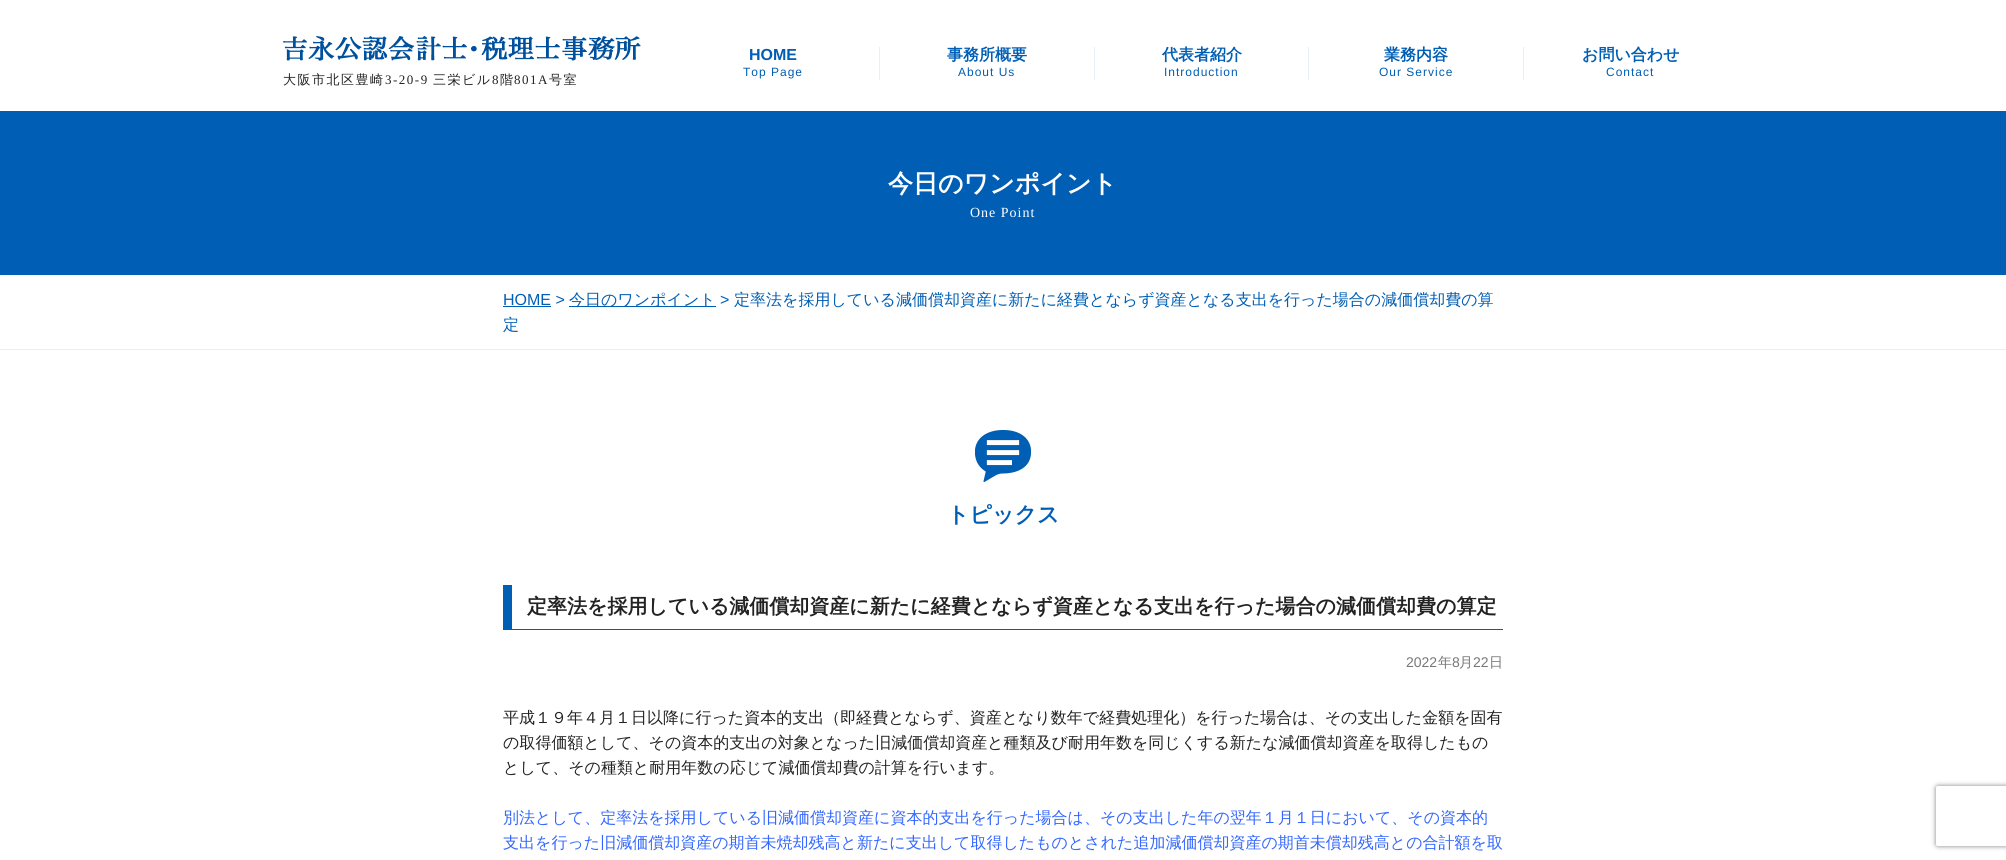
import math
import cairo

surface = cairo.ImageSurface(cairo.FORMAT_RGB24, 2006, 860)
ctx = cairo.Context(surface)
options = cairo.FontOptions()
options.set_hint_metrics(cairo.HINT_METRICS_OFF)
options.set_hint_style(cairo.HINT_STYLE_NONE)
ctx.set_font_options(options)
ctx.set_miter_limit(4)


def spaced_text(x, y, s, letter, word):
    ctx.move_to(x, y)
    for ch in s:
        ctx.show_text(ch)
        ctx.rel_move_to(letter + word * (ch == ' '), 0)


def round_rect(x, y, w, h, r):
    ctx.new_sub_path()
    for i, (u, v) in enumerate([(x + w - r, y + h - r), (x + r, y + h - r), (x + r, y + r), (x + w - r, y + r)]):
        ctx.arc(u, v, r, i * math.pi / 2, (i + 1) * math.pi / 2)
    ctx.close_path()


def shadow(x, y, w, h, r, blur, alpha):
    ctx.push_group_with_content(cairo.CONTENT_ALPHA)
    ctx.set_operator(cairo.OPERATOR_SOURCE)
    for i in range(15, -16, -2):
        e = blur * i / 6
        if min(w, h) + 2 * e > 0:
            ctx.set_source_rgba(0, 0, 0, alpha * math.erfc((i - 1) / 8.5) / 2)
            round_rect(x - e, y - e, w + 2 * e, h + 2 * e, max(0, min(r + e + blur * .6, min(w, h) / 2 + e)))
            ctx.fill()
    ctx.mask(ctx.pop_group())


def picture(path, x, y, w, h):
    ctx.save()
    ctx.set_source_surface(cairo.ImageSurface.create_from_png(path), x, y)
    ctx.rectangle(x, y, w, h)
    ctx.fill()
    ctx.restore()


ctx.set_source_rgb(1, 1, 1)
ctx.paint()
picture("img1.png", 283, 36, 358, 25)
ctx.select_font_face("WenQuanYi Zen Hei Medium")
ctx.set_font_size(13)
ctx.set_source_rgb(0.133, 0.133, 0.133)
spaced_text(283, 84, "大阪市北区豊崎", 1.5, 0)
ctx.select_font_face("Liberation Serif")
spaced_text(385, 84, "3-20-9", 1.5, 0)
ctx.select_font_face("WenQuanYi Zen Hei Medium")
spaced_text(433, 84, "三栄ビル", 1.5, 0)
ctx.select_font_face("Liberation Serif")
spaced_text(492, 84, "8", 1.5, 0)
ctx.select_font_face("WenQuanYi Zen Hei Medium")
spaced_text(500, 84, "階", 1.5, 0)
ctx.select_font_face("Liberation Serif")
spaced_text(514, 84, "801A", 1.5, 0)
ctx.select_font_face("WenQuanYi Zen Hei Medium")
spaced_text(549, 84, "号室", 1.5, 0)
ctx.select_font_face("Liberation Sans", cairo.FONT_SLANT_NORMAL, cairo.FONT_WEIGHT_BOLD)
ctx.set_font_size(16)
ctx.set_source_rgb(0, 0.369, 0.706)
ctx.move_to(749, 60)
ctx.show_text("HOME")
ctx.select_font_face("Liberation Sans")
ctx.set_font_size(12)
spaced_text(743, 76, "Top Page", 1, 0)
ctx.set_source_rgb(0.898, 0.937, 0.969)
ctx.rectangle(879, 47, 1, 33)
ctx.fill()
ctx.select_font_face("WenQuanYi Zen Hei", cairo.FONT_SLANT_NORMAL, cairo.FONT_WEIGHT_BOLD)
ctx.set_font_size(16)
ctx.set_source_rgb(0, 0.369, 0.706)
ctx.move_to(947, 60)
ctx.show_text("事務所概要")
ctx.select_font_face("Liberation Sans")
ctx.set_font_size(12)
spaced_text(958, 76, "About Us", 1, 0)
ctx.set_source_rgb(0.898, 0.937, 0.969)
ctx.rectangle(1094, 47, 1, 33)
ctx.fill()
ctx.select_font_face("WenQuanYi Zen Hei", cairo.FONT_SLANT_NORMAL, cairo.FONT_WEIGHT_BOLD)
ctx.set_font_size(16)
ctx.set_source_rgb(0, 0.369, 0.706)
ctx.move_to(1162, 60)
ctx.show_text("代表者紹介")
ctx.select_font_face("Liberation Sans")
ctx.set_font_size(12)
spaced_text(1164, 76, "Introduction", 1, 0)
ctx.set_source_rgb(0.898, 0.937, 0.969)
ctx.rectangle(1308, 47, 1, 33)
ctx.fill()
ctx.select_font_face("WenQuanYi Zen Hei", cairo.FONT_SLANT_NORMAL, cairo.FONT_WEIGHT_BOLD)
ctx.set_font_size(16)
ctx.set_source_rgb(0, 0.369, 0.706)
ctx.move_to(1384, 60)
ctx.show_text("業務内容")
ctx.select_font_face("Liberation Sans")
ctx.set_font_size(12)
spaced_text(1379, 76, "Our Service", 1, 0)
ctx.set_source_rgb(0.898, 0.937, 0.969)
ctx.rectangle(1523, 47, 1, 33)
ctx.fill()
ctx.select_font_face("WenQuanYi Zen Hei", cairo.FONT_SLANT_NORMAL, cairo.FONT_WEIGHT_BOLD)
ctx.set_font_size(16)
ctx.set_source_rgb(0, 0.369, 0.706)
ctx.move_to(1582, 60)
ctx.show_text("お問い合わせ")
ctx.select_font_face("Liberation Sans")
ctx.set_font_size(12)
spaced_text(1606, 76, "Contact", 1, 0)
ctx.rectangle(0, 111, 2006, 164)
ctx.fill()
ctx.select_font_face("WenQuanYi Zen Hei", cairo.FONT_SLANT_NORMAL, cairo.FONT_WEIGHT_BOLD)
ctx.set_font_size(25)
ctx.set_source_rgb(1, 1, 1)
ctx.move_to(888, 192)
ctx.show_text("今日のワンポイント")
ctx.select_font_face("Liberation Serif")
ctx.set_font_size(14)
spaced_text(970, 217, "One Point", 1, 0)
ctx.set_source_rgb(0.898, 0.937, 0.969)
ctx.rectangle(0, 349, 2006, 1)
ctx.fill()
ctx.select_font_face("Liberation Sans")
ctx.set_font_size(16)
ctx.set_source_rgb(0, 0.369, 0.706)
ctx.move_to(503, 305)
ctx.show_text("HOME >")
ctx.rectangle(503, 306, 48, 1)
ctx.fill()
ctx.rectangle(569, 306, 147, 1)
ctx.fill()
ctx.select_font_face("WenQuanYi Zen Hei Medium")
ctx.move_to(569, 305)
ctx.show_text("今日のワンポイント")
ctx.select_font_face("Liberation Sans")
ctx.move_to(720, 305)
ctx.show_text(">")
ctx.select_font_face("WenQuanYi Zen Hei Medium")
ctx.move_to(734, 305)
ctx.show_text("定率法を採用している減価償却資産に新たに経費とならず資産となる支出を行った場合の減価償却費の算")
ctx.move_to(503, 330)
ctx.show_text("定")
picture("img2.png", 975, 430, 56, 52)
ctx.select_font_face("WenQuanYi Zen Hei", cairo.FONT_SLANT_NORMAL, cairo.FONT_WEIGHT_BOLD)
ctx.set_font_size(22)
ctx.move_to(947, 522)
ctx.show_text("トピックス")
ctx.rectangle(512, 629, 991, 1)
ctx.fill()
ctx.rectangle(503, 585, 9, 45)
ctx.fill()
ctx.set_font_size(20)
ctx.set_source_rgb(0.133, 0.133, 0.133)
ctx.move_to(527, 613)
ctx.show_text("定率法を採用している減価償却資産に新たに経費とならず資産となる支出を行った場合の減価償却費の算定")
ctx.select_font_face("Liberation Sans")
ctx.set_font_size(14)
ctx.set_source_rgb(0.467, 0.467, 0.467)
ctx.move_to(1406, 667)
ctx.show_text("2022")
ctx.select_font_face("WenQuanYi Zen Hei Medium")
ctx.move_to(1438, 667)
ctx.show_text("年")
ctx.select_font_face("Liberation Sans")
ctx.move_to(1452, 667)
ctx.show_text("8")
ctx.select_font_face("WenQuanYi Zen Hei Medium")
ctx.move_to(1459, 667)
ctx.show_text("月")
ctx.select_font_face("Liberation Sans")
ctx.move_to(1473, 667)
ctx.show_text("22")
ctx.select_font_face("WenQuanYi Zen Hei Medium")
ctx.move_to(1489, 667)
ctx.show_text("日")
ctx.set_font_size(16)
ctx.set_source_rgb(0.133, 0.133, 0.133)
ctx.move_to(503, 723)
ctx.show_text("平成１９年４月１日以降に行った資本的支出（即経費とならず、資産となり数年で経費処理化）を行った場合は、その支出した金額を固有")
ctx.move_to(503, 748)
ctx.show_text("の取得価額として、その資本的支出の対象となった旧減価償却資産と種類及び耐用年数を同じくする新たな減価償却資産を取得したもの")
ctx.move_to(503, 773)
ctx.show_text("として、その種類と耐用年数の応じて減価償却費の計算を行います。")
ctx.set_source_rgb(0.2, 0.4, 1)
ctx.move_to(503, 823)
ctx.show_text("別法として、定率法を採用している旧減価償却資産に資本的支出を行った場合は、その支出した年の翌年１月１日において、その資本的")
ctx.move_to(503, 848)
ctx.show_text("支出を行った旧減価償却資産の期首未焼却残高と新たに支出して取得したものとされた追加減価償却資産の期首未償却残高との合計額を取")
ctx.save()
ctx.set_fill_rule(cairo.FILL_RULE_EVEN_ODD)
ctx.new_path()
ctx.move_to(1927, 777)
ctx.line_to(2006, 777)
ctx.line_to(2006, 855)
ctx.line_to(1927, 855)
ctx.close_path()
ctx.move_to(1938, 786)
ctx.line_to(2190, 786)
ctx.curve_to(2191, 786, 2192, 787, 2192, 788)
ctx.line_to(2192, 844)
ctx.curve_to(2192, 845, 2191, 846, 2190, 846)
ctx.line_to(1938, 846)
ctx.curve_to(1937, 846, 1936, 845, 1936, 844)
ctx.line_to(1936, 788)
ctx.curve_to(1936, 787, 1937, 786, 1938, 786)
ctx.close_path()
ctx.clip()
ctx.set_source_rgb(0.502, 0.502, 0.502)
shadow(1936, 786, 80, 60, 2, 2.5, 1)
ctx.restore()
surface.write_to_png("page.png")
